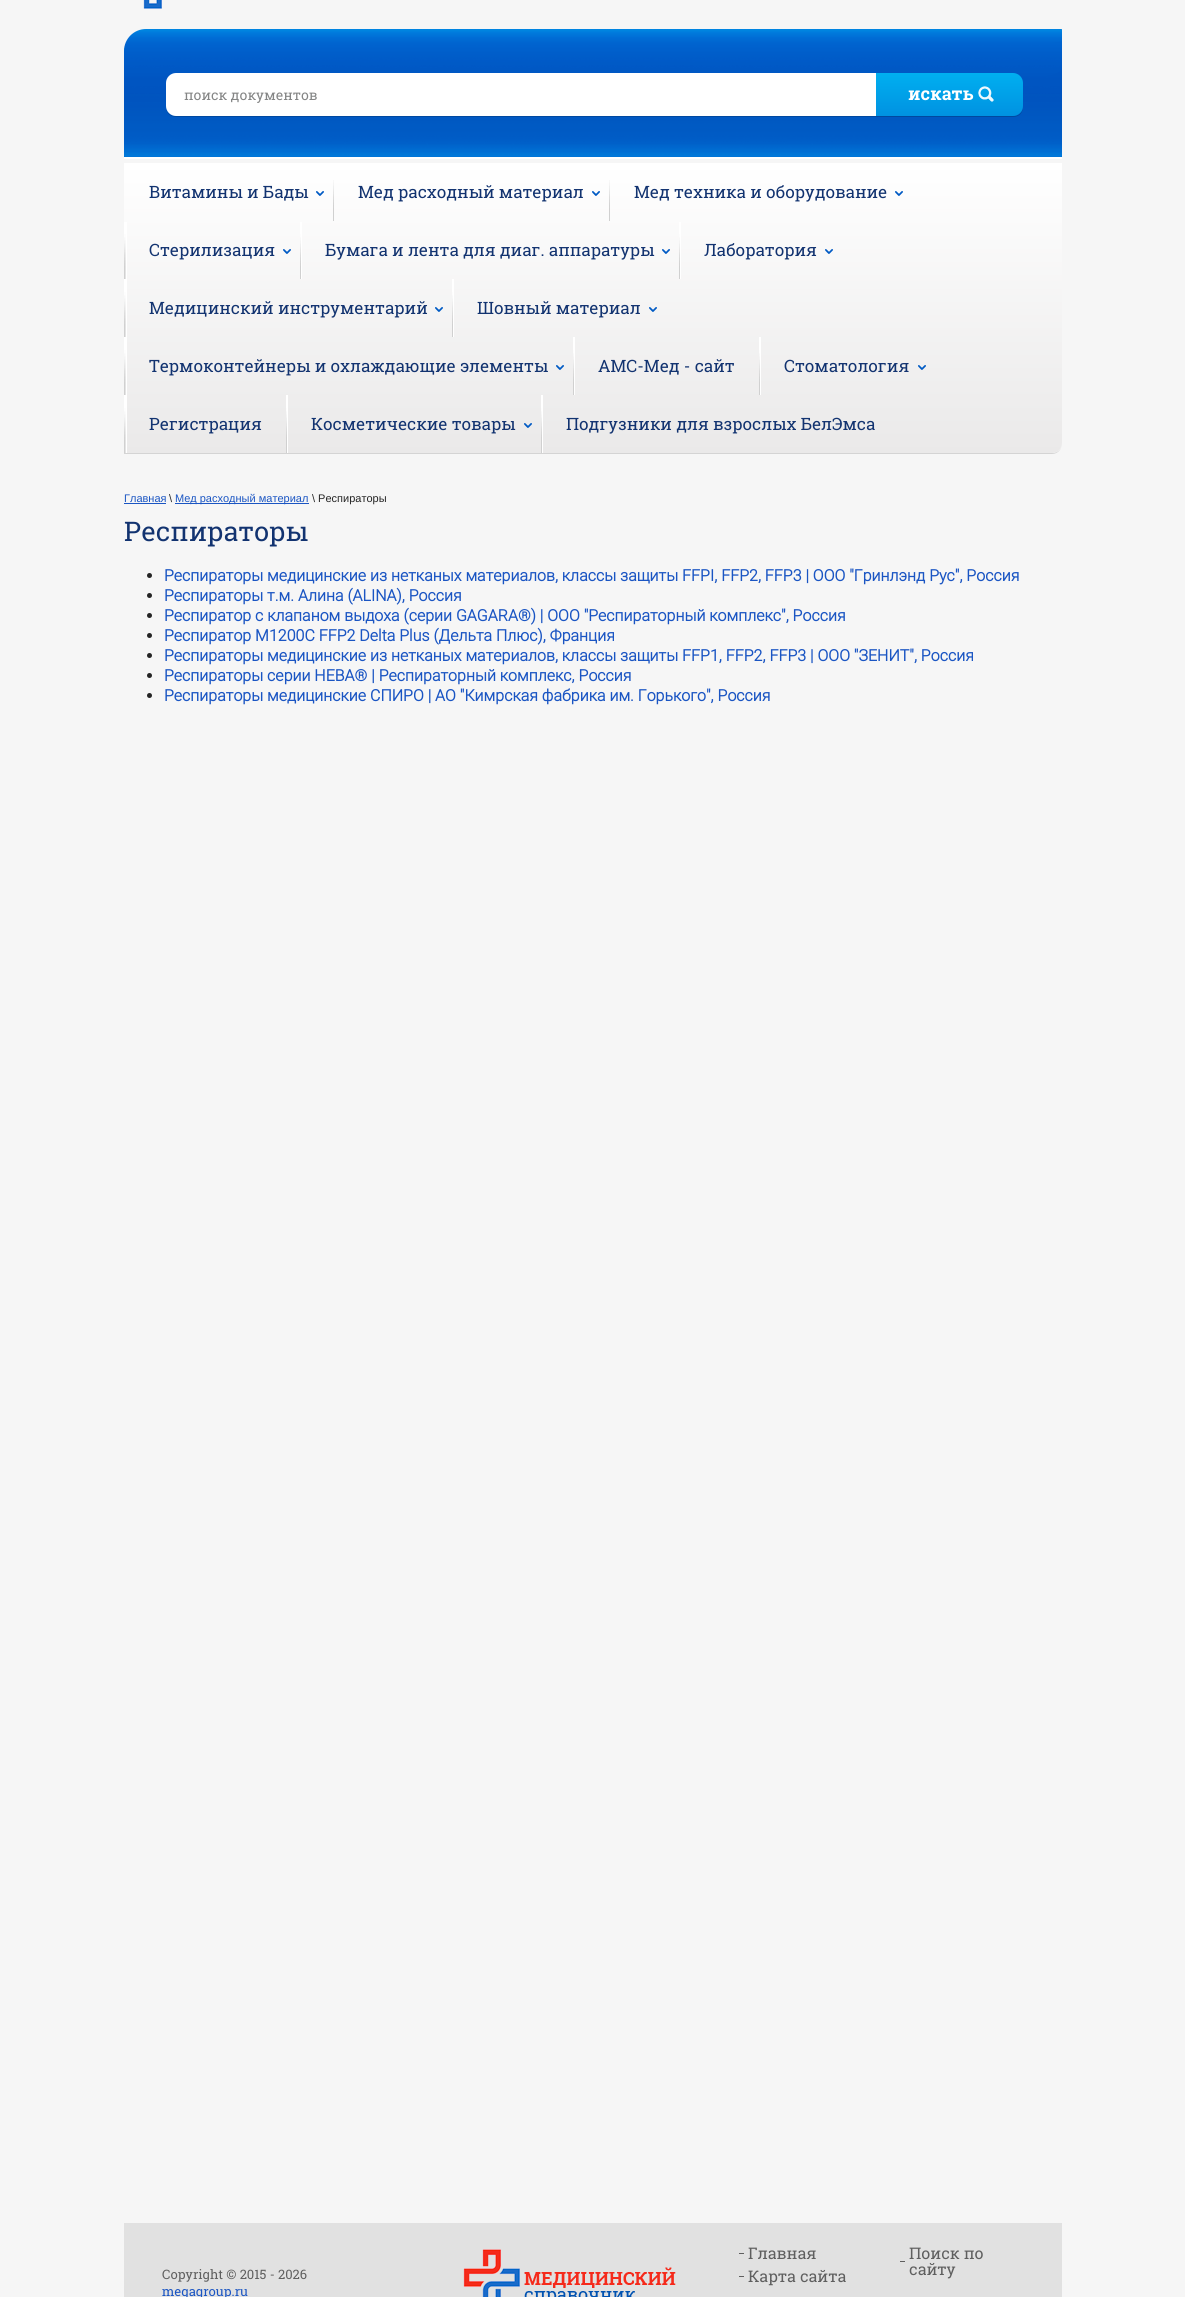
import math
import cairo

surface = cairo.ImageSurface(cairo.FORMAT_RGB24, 1185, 2297)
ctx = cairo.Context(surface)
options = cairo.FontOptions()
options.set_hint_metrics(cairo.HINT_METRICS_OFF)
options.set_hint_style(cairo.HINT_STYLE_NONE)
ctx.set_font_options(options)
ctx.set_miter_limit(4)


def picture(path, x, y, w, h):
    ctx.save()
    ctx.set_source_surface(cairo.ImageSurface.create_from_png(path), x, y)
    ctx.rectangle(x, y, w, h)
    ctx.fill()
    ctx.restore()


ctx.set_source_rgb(0.961, 0.961, 0.961)
ctx.paint()
picture("img1.png", 143, 0, 19, 9)
picture("img2.png", 124, 29, 938, 130)
ctx.set_source_rgb(0, 0.286, 0.627)
ctx.new_path()
ctx.move_to(166, 106)
ctx.line_to(166, 107)
ctx.curve_to(166, 113, 170, 117, 176, 117)
ctx.line_to(1013, 117)
ctx.curve_to(1019, 117, 1023, 113, 1023, 107)
ctx.line_to(1023, 106)
ctx.curve_to(1023, 112, 1019, 116, 1013, 116)
ctx.line_to(176, 116)
ctx.curve_to(170, 116, 166, 112, 166, 106)
ctx.close_path()
ctx.fill()
ctx.set_source_rgb(1, 1, 1)
ctx.new_path()
ctx.move_to(176, 73)
ctx.line_to(876, 73)
ctx.line_to(876, 116)
ctx.line_to(176, 116)
ctx.curve_to(170.5, 116, 166, 111.5, 166, 106)
ctx.line_to(166, 83)
ctx.curve_to(166, 77.5, 170.5, 73, 176, 73)
ctx.close_path()
ctx.fill()
ctx.select_font_face("Roboto Slab")
ctx.set_font_size(14)
ctx.set_source_rgb(0.518, 0.522, 0.522)
ctx.move_to(184, 100)
ctx.show_text("поиск документов")
gradient = cairo.LinearGradient(950, 73, 950, 116)
gradient.add_color_stop_rgba(0, 0, 0.686, 0.941, 1)
gradient.add_color_stop_rgba(1, 0, 0.573, 0.882, 1)
ctx.set_source(gradient)
ctx.new_path()
ctx.move_to(876, 73)
ctx.line_to(1013, 73)
ctx.curve_to(1018.5, 73, 1023, 77.5, 1023, 83)
ctx.line_to(1023, 106)
ctx.curve_to(1023, 111.5, 1018.5, 116, 1013, 116)
ctx.line_to(876, 116)
ctx.close_path()
ctx.fill()
ctx.select_font_face("Roboto Slab", cairo.FONT_SLANT_NORMAL, cairo.FONT_WEIGHT_BOLD)
ctx.set_font_size(18)
ctx.set_source_rgb(1, 1, 1)
ctx.move_to(908, 100)
ctx.show_text("искать")
picture("img3.png", 978, 86, 16, 16)
ctx.set_source_rgb(0.831, 0.831, 0.831)
ctx.new_path()
ctx.move_to(124, 453)
ctx.line_to(124, 454)
ctx.line_to(1052, 454)
ctx.curve_to(1058, 454, 1062, 449, 1062, 443)
ctx.curve_to(1062, 449, 1058, 453, 1052, 453)
ctx.close_path()
ctx.fill()
gradient = cairo.LinearGradient(593, 163, 593, 453)
gradient.add_color_stop_rgba(0, 1, 1, 1, 1)
gradient.add_color_stop_rgba(1, 0.918, 0.914, 0.914, 1)
ctx.set_source(gradient)
ctx.new_path()
ctx.move_to(124, 163)
ctx.line_to(1062, 163)
ctx.line_to(1062, 443)
ctx.curve_to(1062, 448.5, 1057.5, 453, 1052, 453)
ctx.line_to(124, 453)
ctx.close_path()
ctx.fill()
ctx.select_font_face("Roboto Slab")
ctx.set_font_size(17)
ctx.set_source_rgb(0.071, 0.2, 0.439)
ctx.move_to(149, 198)
ctx.show_text("Витамины и Бады")
picture("img4.png", 316, 191, 8, 5)
picture("img5.png", 333, 180, 1, 41)
ctx.move_to(358, 198)
ctx.show_text("Мед расходный материал")
picture("img4.png", 592, 191, 8, 5)
picture("img5.png", 609, 180, 1, 41)
ctx.move_to(634, 198)
ctx.show_text("Мед техника и оборудование")
picture("img4.png", 895, 191, 8, 5)
picture("img6.png", 124, 222, 3, 57)
ctx.move_to(149, 256)
ctx.show_text("Стерилизация")
picture("img7.png", 283, 249, 8, 5)
picture("img8.png", 300, 222, 2, 57)
ctx.move_to(325, 256)
ctx.show_text("Бумага и лента для диаг. аппаратуры")
picture("img7.png", 662, 249, 8, 5)
picture("img8.png", 679, 222, 2, 57)
ctx.move_to(704, 256)
ctx.show_text("Лаборатория")
picture("img7.png", 825, 249, 8, 5)
picture("img9.png", 124, 279, 3, 58)
ctx.move_to(149, 314)
ctx.show_text("Медицинский инструментарий")
picture("img10.png", 435, 307, 8, 5)
picture("img11.png", 452, 279, 2, 58)
ctx.move_to(477, 314)
ctx.show_text("Шовный материал")
picture("img10.png", 649, 307, 8, 5)
picture("img9.png", 124, 337, 3, 58)
ctx.move_to(149, 372)
ctx.show_text("Термоконтейнеры и охлаждающие элементы")
picture("img12.png", 556, 365, 8, 5)
picture("img11.png", 573, 337, 2, 58)
ctx.move_to(598, 372)
ctx.show_text("АМС-Мед - сайт")
picture("img11.png", 759, 337, 2, 58)
ctx.move_to(784, 372)
ctx.show_text("Стоматология")
picture("img12.png", 918, 365, 8, 5)
picture("img9.png", 124, 395, 3, 58)
ctx.move_to(149, 430)
ctx.show_text("Регистрация")
picture("img11.png", 286, 395, 2, 58)
ctx.move_to(311, 430)
ctx.show_text("Косметические товары")
picture("img13.png", 524, 423, 8, 5)
picture("img11.png", 541, 395, 2, 58)
ctx.move_to(566, 430)
ctx.show_text("Подгузники для взрослых БелЭмса")
ctx.select_font_face("Liberation Sans")
ctx.set_font_size(11)
ctx.set_source_rgb(0.102, 0.333, 0.765)
ctx.move_to(124, 502)
ctx.show_text("Главная")
ctx.rectangle(124, 503, 42, 1)
ctx.fill()
ctx.set_source_rgb(0.145, 0.145, 0.145)
ctx.move_to(169, 502)
ctx.show_text("\\")
ctx.set_source_rgb(0.102, 0.333, 0.765)
ctx.rectangle(175, 503, 134, 1)
ctx.fill()
ctx.move_to(175, 502)
ctx.show_text("Мед расходный материал")
ctx.set_source_rgb(0.145, 0.145, 0.145)
ctx.move_to(312, 502)
ctx.show_text("\\ Респираторы")
ctx.select_font_face("Roboto Slab")
ctx.set_font_size(27)
ctx.set_source_rgb(0.071, 0.2, 0.439)
ctx.move_to(124, 541)
ctx.show_text("Респираторы")
ctx.set_source_rgb(0.145, 0.145, 0.145)
ctx.new_path()
ctx.arc(149.5, 575.5, 2.5, 0, 2 * math.pi)
ctx.fill()
ctx.select_font_face("Roboto", cairo.FONT_SLANT_NORMAL, cairo.FONT_WEIGHT_BOLD)
ctx.set_font_size(16)
ctx.set_source_rgb(0.102, 0.333, 0.765)
ctx.move_to(164, 581)
ctx.show_text("Респираторы медицинские из нетканых материалов, классы защиты FFPI, FFP2, FFP3 | ООО \"Гринлэнд Рус\", Россия")
ctx.set_source_rgb(0.145, 0.145, 0.145)
ctx.new_path()
ctx.arc(149.5, 595.5, 2.5, 0, 2 * math.pi)
ctx.fill()
ctx.set_source_rgb(0.102, 0.333, 0.765)
ctx.move_to(164, 601)
ctx.show_text("Респираторы т.м. Алина (ALINA), Россия")
ctx.set_source_rgb(0.145, 0.145, 0.145)
ctx.new_path()
ctx.arc(149.5, 615.5, 2.5, 0, 2 * math.pi)
ctx.fill()
ctx.set_source_rgb(0.102, 0.333, 0.765)
ctx.move_to(164, 621)
ctx.show_text("Респиратор с клапаном выдоха (серии GAGARA®) | ООО \"Респираторный комплекс\", Россия")
ctx.set_source_rgb(0.145, 0.145, 0.145)
ctx.new_path()
ctx.arc(149.5, 635.5, 2.5, 0, 2 * math.pi)
ctx.fill()
ctx.set_source_rgb(0.102, 0.333, 0.765)
ctx.move_to(164, 641)
ctx.show_text("Респиратор M1200C FFP2 Delta Plus (Дельта Плюс), Франция")
ctx.set_source_rgb(0.145, 0.145, 0.145)
ctx.new_path()
ctx.arc(149.5, 655.5, 2.5, 0, 2 * math.pi)
ctx.fill()
ctx.set_source_rgb(0.102, 0.333, 0.765)
ctx.move_to(164, 661)
ctx.show_text("Респираторы медицинские из нетканых материалов, классы защиты FFP1, FFP2, FFP3 | ООО \"ЗЕНИТ\", Россия")
ctx.set_source_rgb(0.145, 0.145, 0.145)
ctx.new_path()
ctx.arc(149.5, 675.5, 2.5, 0, 2 * math.pi)
ctx.fill()
ctx.set_source_rgb(0.102, 0.333, 0.765)
ctx.move_to(164, 681)
ctx.show_text("Респираторы серии НЕВА® | Респираторный комплекс, Россия")
ctx.set_source_rgb(0.145, 0.145, 0.145)
ctx.new_path()
ctx.arc(149.5, 695.5, 2.5, 0, 2 * math.pi)
ctx.fill()
ctx.set_source_rgb(0.102, 0.333, 0.765)
ctx.move_to(164, 701)
ctx.show_text("Респираторы медицинские СПИРО | АО \"Кимрская фабрика им. Горького\", Россия")
ctx.set_source_rgb(0.882, 0.882, 0.882)
ctx.rectangle(124, 2223, 938, 74)
ctx.fill()
ctx.select_font_face("Roboto Slab")
ctx.set_font_size(13)
ctx.set_source_rgb(0.373, 0.373, 0.373)
ctx.move_to(162, 2279)
ctx.show_text("Copyright © 2015 - 2026")
ctx.set_source_rgb(0.102, 0.333, 0.765)
ctx.move_to(162, 2296)
ctx.show_text("megagroup.ru")
picture("img14.png", 463, 2249, 213, 48)
ctx.set_source_rgb(0.373, 0.373, 0.373)
ctx.rectangle(739, 2253, 5, 1)
ctx.fill()
ctx.set_font_size(16)
ctx.move_to(748, 2259)
ctx.show_text("Главная")
ctx.rectangle(739, 2276, 5, 1)
ctx.fill()
ctx.move_to(748, 2282)
ctx.show_text("Карта сайта")
ctx.move_to(909, 2259)
ctx.show_text("Поиск по")
ctx.rectangle(900, 2261, 5, 1)
ctx.fill()
ctx.move_to(909, 2275)
ctx.show_text("сайту")
surface.write_to_png("page.png")
